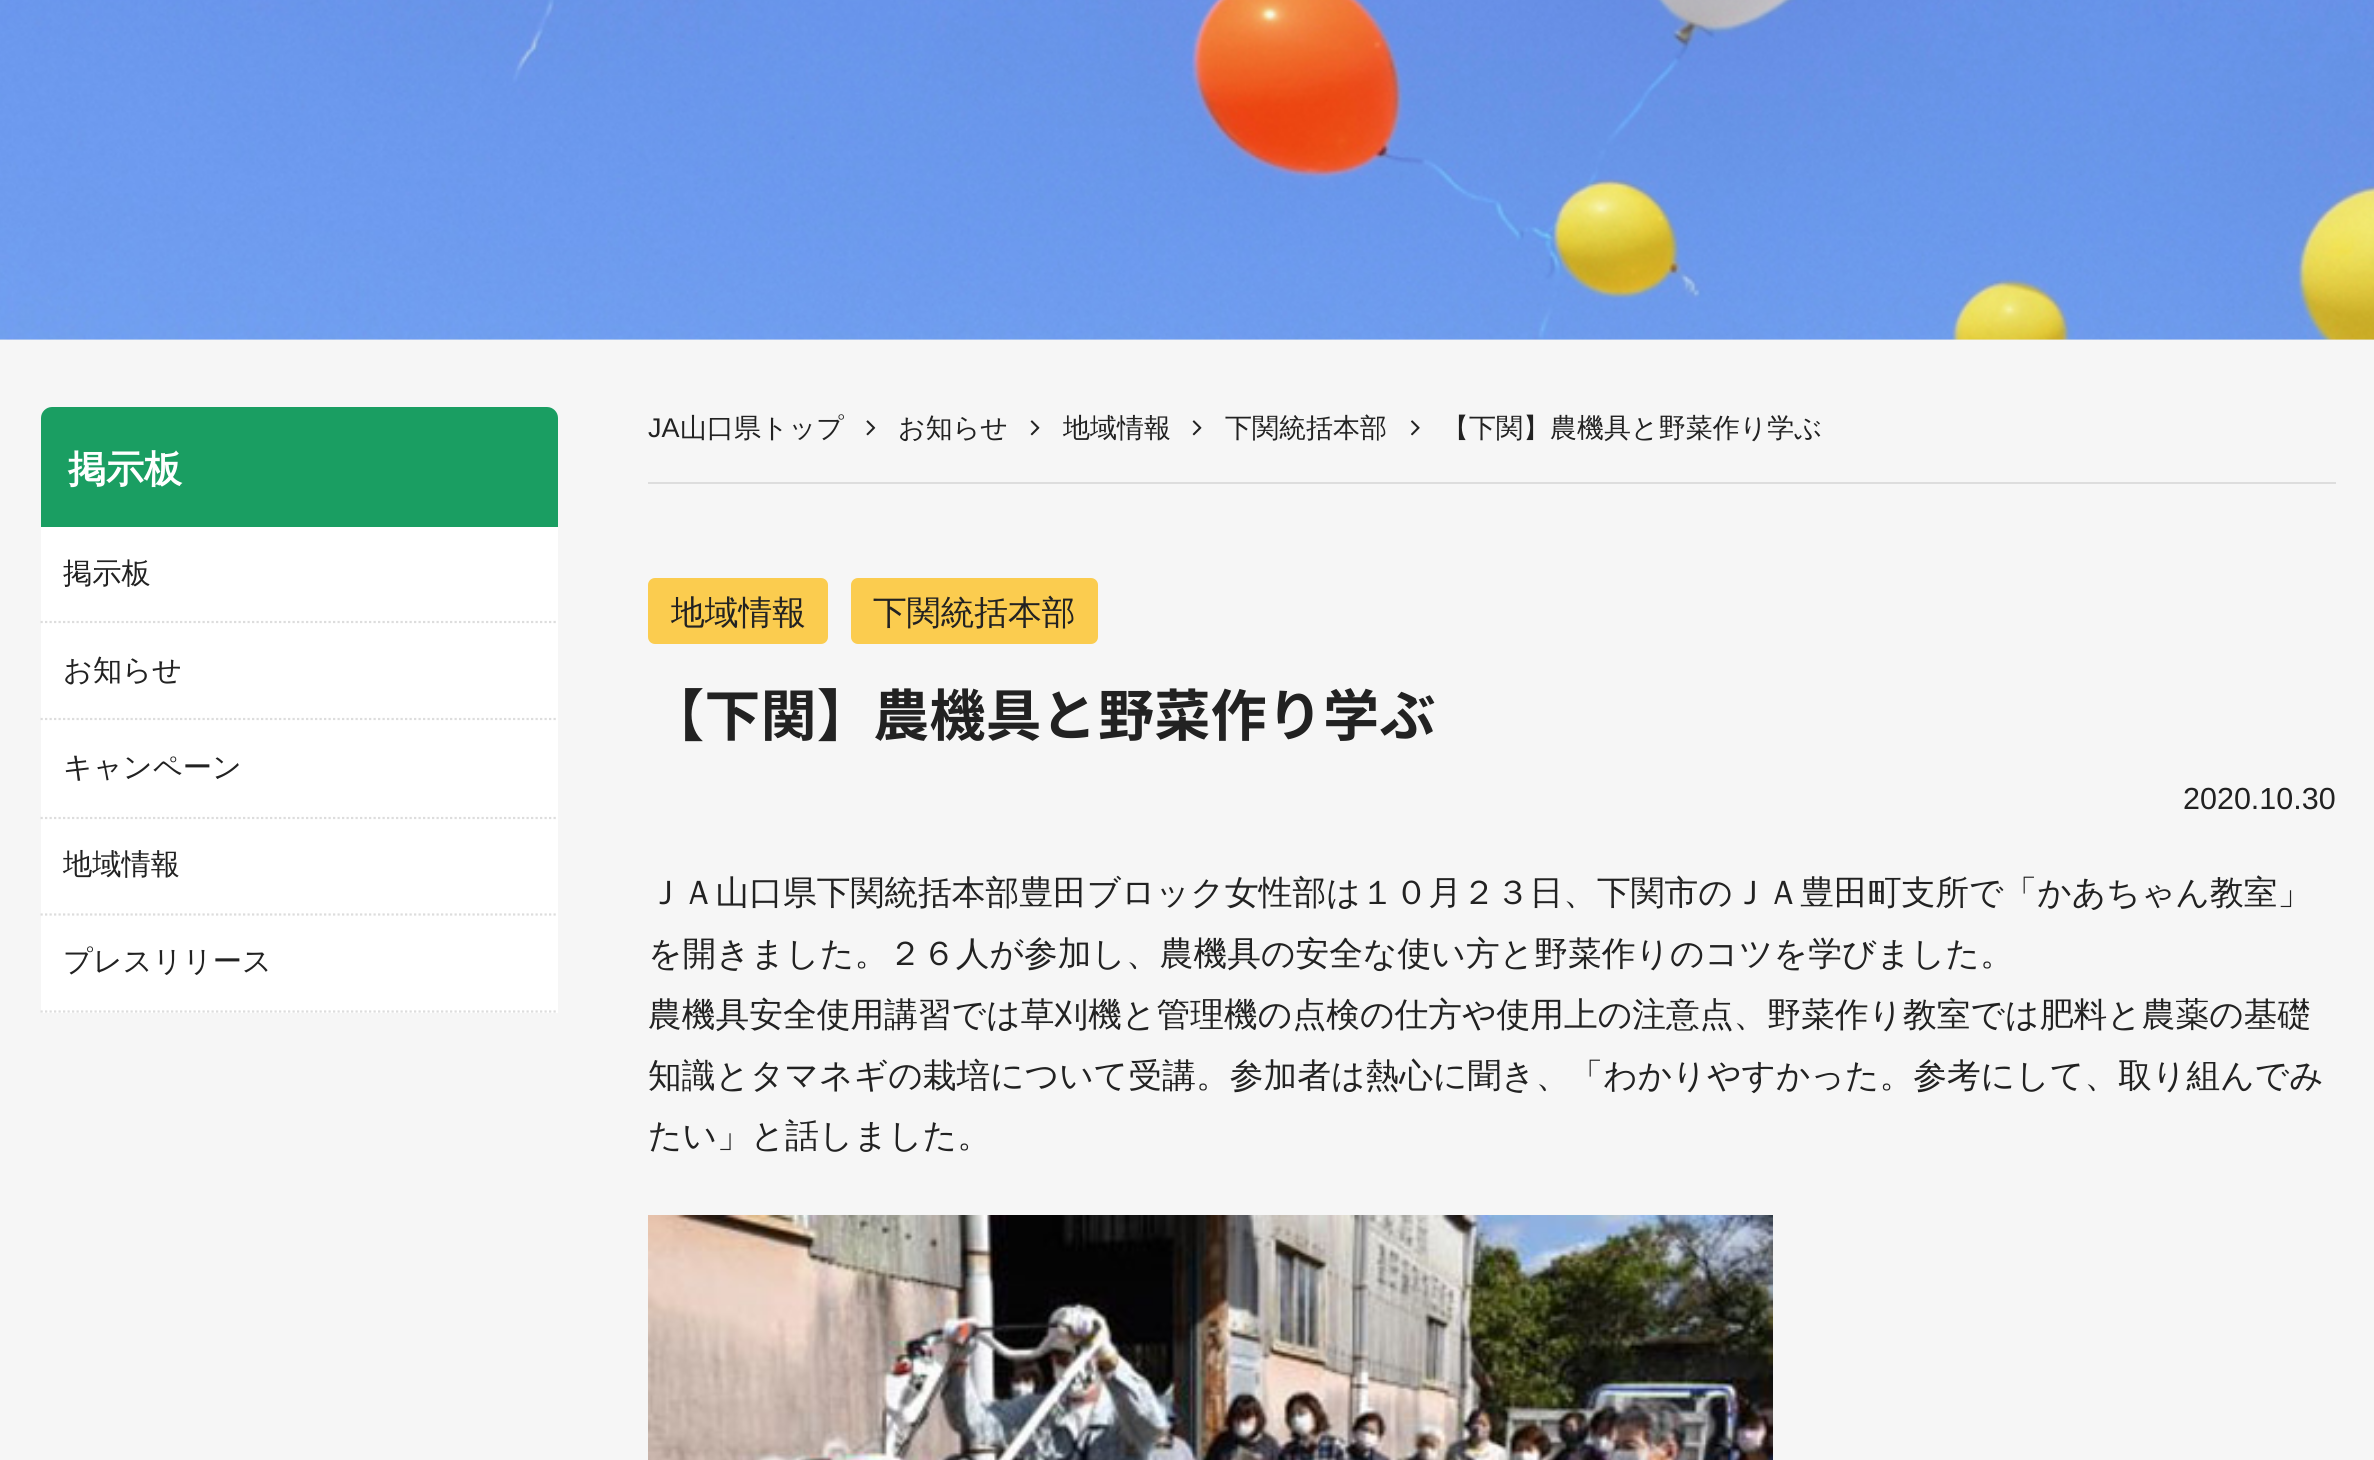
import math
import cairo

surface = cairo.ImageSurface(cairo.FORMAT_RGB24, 2374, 1460)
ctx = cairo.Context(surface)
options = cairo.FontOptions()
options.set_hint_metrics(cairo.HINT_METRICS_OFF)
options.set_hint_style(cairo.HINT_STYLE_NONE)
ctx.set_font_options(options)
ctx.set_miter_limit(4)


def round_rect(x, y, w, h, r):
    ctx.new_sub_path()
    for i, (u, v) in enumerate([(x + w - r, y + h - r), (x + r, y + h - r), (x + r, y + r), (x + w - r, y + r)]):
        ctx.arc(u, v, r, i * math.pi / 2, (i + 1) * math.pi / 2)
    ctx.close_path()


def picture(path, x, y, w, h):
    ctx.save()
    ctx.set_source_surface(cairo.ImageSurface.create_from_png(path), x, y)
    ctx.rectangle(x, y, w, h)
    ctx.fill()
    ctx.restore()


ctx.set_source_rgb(0.933, 0.933, 0.933)
ctx.paint()
picture("img1.png", 0, 0, 2374, 340)
ctx.set_source_rgb(0.961, 0.961, 0.961)
ctx.rectangle(0, 340, 2374, 1120)
ctx.fill()
ctx.set_source_rgb(0.102, 0.62, 0.384)
ctx.new_path()
ctx.move_to(52, 407)
ctx.line_to(547, 407)
ctx.curve_to(553, 407, 558, 412, 558, 418)
ctx.line_to(558, 527)
ctx.line_to(41, 527)
ctx.line_to(41, 418)
ctx.curve_to(41, 412, 46, 407, 52, 407)
ctx.close_path()
ctx.fill()
ctx.select_font_face("WenQuanYi Zen Hei", cairo.FONT_SLANT_NORMAL, cairo.FONT_WEIGHT_BOLD)
ctx.set_font_size(38)
ctx.set_source_rgb(1, 1, 1)
ctx.move_to(68, 482)
ctx.show_text("掲示板")
ctx.rectangle(41, 527, 517, 486)
ctx.fill()
ctx.new_path()
ctx.move_to(40.5, 622)
ctx.line_to(558, 622)
ctx.set_source_rgb(0.867, 0.867, 0.867)
ctx.set_line_width(2.2)
ctx.set_dash([2.25, 2.25])
ctx.stroke()
ctx.select_font_face("WenQuanYi Zen Hei Medium")
ctx.set_font_size(29.25)
ctx.set_source_rgb(0.133, 0.133, 0.133)
ctx.move_to(63, 583)
ctx.show_text("掲示板")
ctx.new_path()
ctx.move_to(40.5, 719)
ctx.line_to(558, 719)
ctx.set_source_rgb(0.867, 0.867, 0.867)
ctx.stroke()
ctx.set_source_rgb(0.133, 0.133, 0.133)
ctx.move_to(63, 680)
ctx.show_text("お知らせ")
ctx.new_path()
ctx.move_to(40.5, 818)
ctx.line_to(558, 818)
ctx.set_source_rgb(0.867, 0.867, 0.867)
ctx.stroke()
ctx.set_source_rgb(0.133, 0.133, 0.133)
ctx.move_to(63, 777)
ctx.show_text("キャンペーン")
ctx.new_path()
ctx.move_to(40.5, 914.5)
ctx.line_to(558, 914.5)
ctx.set_source_rgb(0.867, 0.867, 0.867)
ctx.stroke()
ctx.set_source_rgb(0.133, 0.133, 0.133)
ctx.move_to(63, 874)
ctx.show_text("地域情報")
ctx.new_path()
ctx.move_to(40.5, 1011.5)
ctx.line_to(558, 1011.5)
ctx.set_source_rgb(0.867, 0.867, 0.867)
ctx.stroke()
ctx.set_source_rgb(0.133, 0.133, 0.133)
ctx.move_to(63, 971)
ctx.show_text("プレスリリース")
ctx.set_source_rgb(0.867, 0.867, 0.867)
ctx.rectangle(648, 482, 1688, 2)
ctx.fill()
ctx.select_font_face("Liberation Sans")
ctx.set_font_size(27)
ctx.set_source_rgb(0.133, 0.133, 0.133)
ctx.move_to(648, 437)
ctx.show_text("JA")
ctx.select_font_face("WenQuanYi Zen Hei Medium")
ctx.move_to(680, 437)
ctx.show_text("山口県トップ")
picture("img2.png", 866, 420, 10, 16)
ctx.move_to(898, 437)
ctx.show_text("お知らせ")
picture("img3.png", 1030, 420, 10, 16)
ctx.move_to(1063, 437)
ctx.show_text("地域情報")
picture("img3.png", 1192, 420, 10, 16)
ctx.move_to(1225, 437)
ctx.show_text("下関統括本部")
picture("img4.png", 1411, 420, 9, 16)
ctx.move_to(1442, 437)
ctx.show_text("【下関】農機具と野菜作り学ぶ")
ctx.set_source_rgb(0.984, 0.8, 0.31)
round_rect(648, 578, 180, 66, 7)
ctx.fill()
ctx.set_font_size(33.75)
ctx.set_source_rgb(0.133, 0.133, 0.133)
ctx.move_to(671, 624)
ctx.show_text("地域情報")
ctx.set_source_rgb(0.984, 0.8, 0.31)
round_rect(851, 578, 247, 66, 7)
ctx.fill()
ctx.set_source_rgb(0.133, 0.133, 0.133)
ctx.move_to(873, 624)
ctx.show_text("下関統括本部")
ctx.select_font_face("Noto Sans CJK JP", cairo.FONT_SLANT_NORMAL, cairo.FONT_WEIGHT_BOLD)
ctx.set_font_size(56.25)
ctx.move_to(648, 736)
ctx.show_text("【下関】農機具と野菜作り学ぶ")
ctx.select_font_face("Liberation Sans")
ctx.set_font_size(30.5)
ctx.move_to(2183, 809)
ctx.show_text("2020.10.30")
ctx.select_font_face("WenQuanYi Zen Hei Medium")
ctx.set_font_size(33.75)
ctx.move_to(648, 904)
ctx.show_text("ＪＡ山口県下関統括本部豊田ブロック女性部は１０月２３日、下関市のＪＡ豊田町支所で「かあちゃん教室」")
ctx.move_to(648, 965)
ctx.show_text("を開きました。２６人が参加し、農機具の安全な使い方と野菜作りのコツを学びました。")
ctx.move_to(648, 1026)
ctx.show_text("農機具安全使用講習では草刈機と管理機の点検の仕方や使用上の注意点、野菜作り教室では肥料と農薬の基礎")
ctx.move_to(648, 1087)
ctx.show_text("知識とタマネギの栽培について受講。参加者は熱心に聞き、「わかりやすかった。参考にして、取り組んでみ")
ctx.move_to(648, 1147)
ctx.show_text("たい」と話しました。")
picture("img5.png", 648, 1215, 1125, 245)
surface.write_to_png("page.png")
